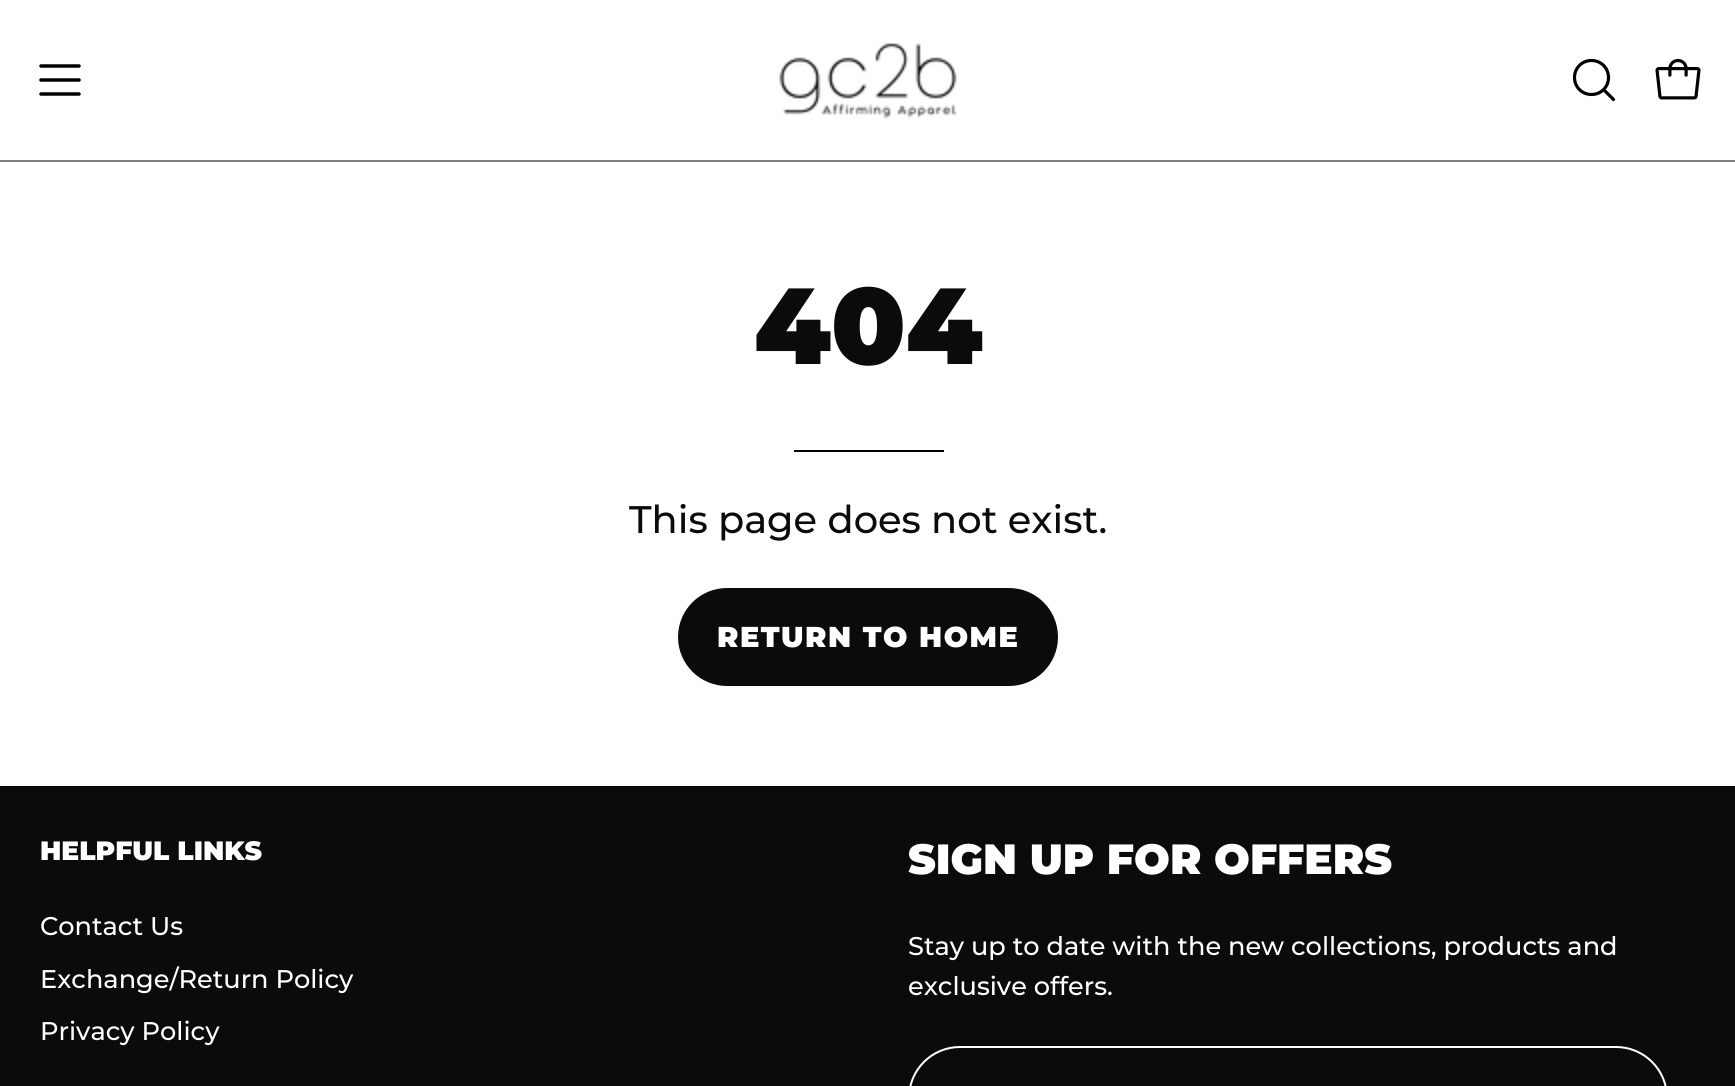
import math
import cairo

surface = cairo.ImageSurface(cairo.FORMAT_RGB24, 1735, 1086)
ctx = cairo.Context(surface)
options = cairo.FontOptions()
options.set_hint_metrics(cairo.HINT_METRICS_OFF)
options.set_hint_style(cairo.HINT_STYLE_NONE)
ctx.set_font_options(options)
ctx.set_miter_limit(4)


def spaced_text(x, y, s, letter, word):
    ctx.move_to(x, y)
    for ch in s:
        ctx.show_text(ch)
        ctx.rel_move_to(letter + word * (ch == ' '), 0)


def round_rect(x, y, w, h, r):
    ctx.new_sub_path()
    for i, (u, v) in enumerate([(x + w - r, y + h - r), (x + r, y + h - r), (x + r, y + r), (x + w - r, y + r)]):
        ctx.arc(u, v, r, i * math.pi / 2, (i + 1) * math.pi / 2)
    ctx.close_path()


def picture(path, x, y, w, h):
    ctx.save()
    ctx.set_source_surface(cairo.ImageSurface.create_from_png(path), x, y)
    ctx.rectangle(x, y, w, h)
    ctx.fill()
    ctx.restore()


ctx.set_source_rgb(1, 1, 1)
ctx.paint()
ctx.new_path()
ctx.move_to(41, 80)
ctx.line_to(79, 80)
ctx.move_to(41, 66)
ctx.line_to(79, 66)
ctx.move_to(41, 94)
ctx.line_to(79, 94)
ctx.set_source_rgb(0, 0, 0)
ctx.set_line_width(3.5)
ctx.set_line_cap(cairo.LINE_CAP_ROUND)
ctx.set_line_join(cairo.LINE_JOIN_ROUND)
ctx.stroke()
picture("img1.png", 779, 42, 178, 77)
ctx.new_path()
ctx.move_to(1591.5, 94.5)
ctx.curve_to(1601, 94.5, 1608.5, 87, 1608.5, 77.5)
ctx.curve_to(1608.5, 68, 1601, 60.5, 1591.5, 60.5)
ctx.curve_to(1582, 60.5, 1574.5, 68, 1574.5, 77.5)
ctx.curve_to(1574.5, 87, 1582, 94.5, 1591.5, 94.5)
ctx.close_path()
ctx.move_to(1603.5, 89.5)
ctx.line_to(1613.5, 99.5)
ctx.set_line_width(3.2)
ctx.stroke()
picture("img2.png", 1655, 58, 46, 42)
ctx.set_source_rgb(0.502, 0.502, 0.502)
ctx.rectangle(0, 160, 1735, 2)
ctx.fill()
ctx.select_font_face("Montserrat Black")
ctx.set_font_size(108)
ctx.set_source_rgb(0.043, 0.043, 0.043)
ctx.move_to(754, 364)
ctx.show_text("404")
ctx.set_source_rgb(0, 0, 0)
ctx.rectangle(794, 450, 150, 2)
ctx.fill()
ctx.select_font_face("Montserrat Medium")
ctx.set_font_size(38.4)
ctx.set_source_rgb(0.043, 0.043, 0.043)
ctx.move_to(629, 533)
ctx.show_text("This page does not exist.")
round_rect(678, 588, 380, 98, 49)
ctx.fill()
ctx.select_font_face("Montserrat Black")
ctx.set_font_size(28.75)
ctx.set_source_rgb(1, 1, 1)
spaced_text(717, 647, "RETURN TO HOME", 1.5, 0)
ctx.set_source_rgb(0.043, 0.043, 0.043)
ctx.rectangle(0, 786, 1735, 300)
ctx.fill()
ctx.set_font_size(26.5)
ctx.set_source_rgb(1, 1, 1)
ctx.move_to(40, 860)
ctx.show_text("HELPFUL LINKS")
ctx.select_font_face("Montserrat Medium")
ctx.set_font_size(25.6)
ctx.move_to(40, 935)
ctx.show_text("Contact Us")
ctx.move_to(40, 988)
ctx.show_text("Exchange/Return Policy")
ctx.move_to(40, 1040)
ctx.show_text("Privacy Policy")
ctx.select_font_face("Montserrat Black")
ctx.set_font_size(42.25)
ctx.move_to(908, 874)
ctx.show_text("SIGN UP FOR OFFERS")
ctx.select_font_face("Montserrat Medium")
ctx.set_font_size(25.6)
ctx.move_to(908, 955)
ctx.show_text("Stay up to date with the new collections, products and")
ctx.move_to(908, 995)
ctx.show_text("exclusive offers.")
round_rect(909, 1047, 758, 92, 51)
ctx.set_line_width(2)
ctx.set_line_cap(cairo.LINE_CAP_BUTT)
ctx.set_line_join(cairo.LINE_JOIN_MITER)
ctx.stroke()
surface.write_to_png("page.png")
